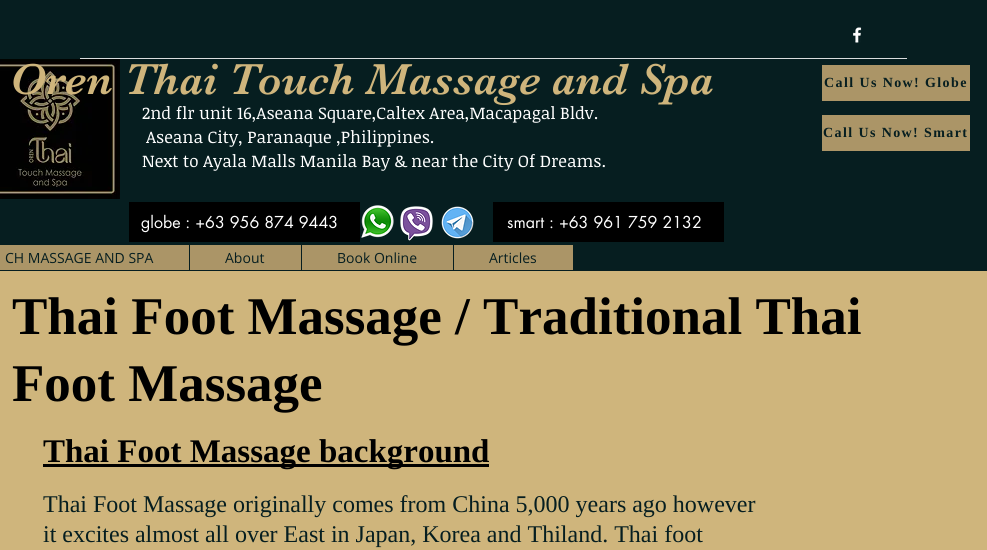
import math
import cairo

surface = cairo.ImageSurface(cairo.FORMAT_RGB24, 987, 550)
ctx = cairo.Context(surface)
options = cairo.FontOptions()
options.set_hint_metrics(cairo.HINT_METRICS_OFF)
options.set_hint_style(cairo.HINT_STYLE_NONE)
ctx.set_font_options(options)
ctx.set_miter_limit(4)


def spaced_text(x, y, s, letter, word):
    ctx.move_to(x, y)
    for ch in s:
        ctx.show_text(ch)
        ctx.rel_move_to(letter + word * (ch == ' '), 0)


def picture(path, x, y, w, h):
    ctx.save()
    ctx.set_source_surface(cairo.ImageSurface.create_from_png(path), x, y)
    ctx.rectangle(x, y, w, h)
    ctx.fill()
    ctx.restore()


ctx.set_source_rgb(0.812, 0.71, 0.486)
ctx.paint()
ctx.set_source_rgb(0.024, 0.118, 0.125)
ctx.rectangle(0, 0, 987, 271)
ctx.fill()
picture("img1.png", 853, 27, 9, 16)
ctx.set_source_rgb(0.855, 0.867, 0.871)
ctx.rectangle(80, 58, 827, 1)
ctx.fill()
picture("img2.png", 0, 59, 120, 140)
ctx.select_font_face("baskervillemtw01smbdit")
ctx.set_font_size(45)
ctx.set_source_rgb(0.812, 0.71, 0.486)
ctx.move_to(10, 94)
ctx.show_text("Oren Thai Touch Massage and Spa")
ctx.select_font_face("Noticia Text")
ctx.set_font_size(17)
ctx.set_source_rgb(1, 1, 1)
ctx.move_to(142, 119)
ctx.show_text("2nd flr unit 16,Aseana Square,Caltex Area,Macapagal Bldv.")
ctx.move_to(146, 143)
ctx.show_text("Aseana City, Paranaque ,Philippines.")
ctx.move_to(142, 167)
ctx.show_text("Next to Ayala Malls Manila Bay & near the City Of Dreams.")
ctx.set_source_rgb(0, 0, 0)
ctx.rectangle(129, 202, 231, 40)
ctx.fill()
ctx.select_font_face("futura")
ctx.set_font_size(16)
ctx.set_source_rgb(1, 1, 1)
ctx.move_to(141, 228)
ctx.show_text("globe : +63 956 874 9443")
picture("img3.png", 361, 205, 33, 33)
picture("img4.png", 400, 206, 33, 35)
picture("img5.png", 441, 206, 33, 33)
ctx.set_source_rgb(0, 0, 0)
ctx.rectangle(493, 202, 231, 40)
ctx.fill()
ctx.set_source_rgb(1, 1, 1)
ctx.move_to(507, 228)
ctx.show_text("smart : +63 961 759 2132")
ctx.set_source_rgb(0.671, 0.584, 0.404)
ctx.rectangle(822, 65, 148, 36)
ctx.fill()
ctx.select_font_face("Liberation Serif", cairo.FONT_SLANT_NORMAL, cairo.FONT_WEIGHT_BOLD)
ctx.set_font_size(14)
ctx.set_source_rgb(0.024, 0.118, 0.125)
spaced_text(824, 87, "Call Us Now! Globe", 1.4, 0)
ctx.set_source_rgb(0.671, 0.584, 0.404)
ctx.rectangle(822, 115, 148, 36)
ctx.fill()
ctx.set_source_rgb(0.024, 0.118, 0.125)
spaced_text(823, 137, "Call Us Now! Smart", 1.4, 0)
ctx.set_source_rgb(0.671, 0.584, 0.404)
ctx.rectangle(0, 245, 573, 25)
ctx.fill()
ctx.select_font_face("Open Sans")
ctx.set_source_rgb(0.024, 0.118, 0.125)
ctx.move_to(5, 263)
ctx.show_text("CH MASSAGE AND SPA")
ctx.rectangle(189, 245, 1, 25)
ctx.fill()
ctx.move_to(225, 263)
ctx.show_text("About")
ctx.rectangle(301, 245, 1, 25)
ctx.fill()
ctx.move_to(337, 263)
ctx.show_text("Book Online")
ctx.rectangle(453, 245, 1, 25)
ctx.fill()
ctx.move_to(489, 263)
ctx.show_text("Articles")
ctx.select_font_face("Liberation Serif", cairo.FONT_SLANT_NORMAL, cairo.FONT_WEIGHT_BOLD)
ctx.set_font_size(53)
ctx.set_source_rgb(0, 0, 0)
ctx.move_to(12, 334)
ctx.show_text("Thai Foot Massage / Traditional Thai")
ctx.move_to(12, 401)
ctx.show_text("Foot Massage")
ctx.rectangle(43, 464, 446, 3)
ctx.fill()
ctx.set_font_size(33)
ctx.move_to(43, 462)
ctx.show_text("Thai Foot Massage background")
ctx.select_font_face("Liberation Serif")
ctx.set_font_size(24)
ctx.set_source_rgb(0.024, 0.118, 0.125)
ctx.move_to(43, 512)
ctx.show_text("Thai Foot Massage originally comes from China 5,000 years ago however")
ctx.move_to(43, 542)
ctx.show_text("it excites almost all over East in Japan, Korea and Thiland. Thai foot")
surface.write_to_png("page.png")
